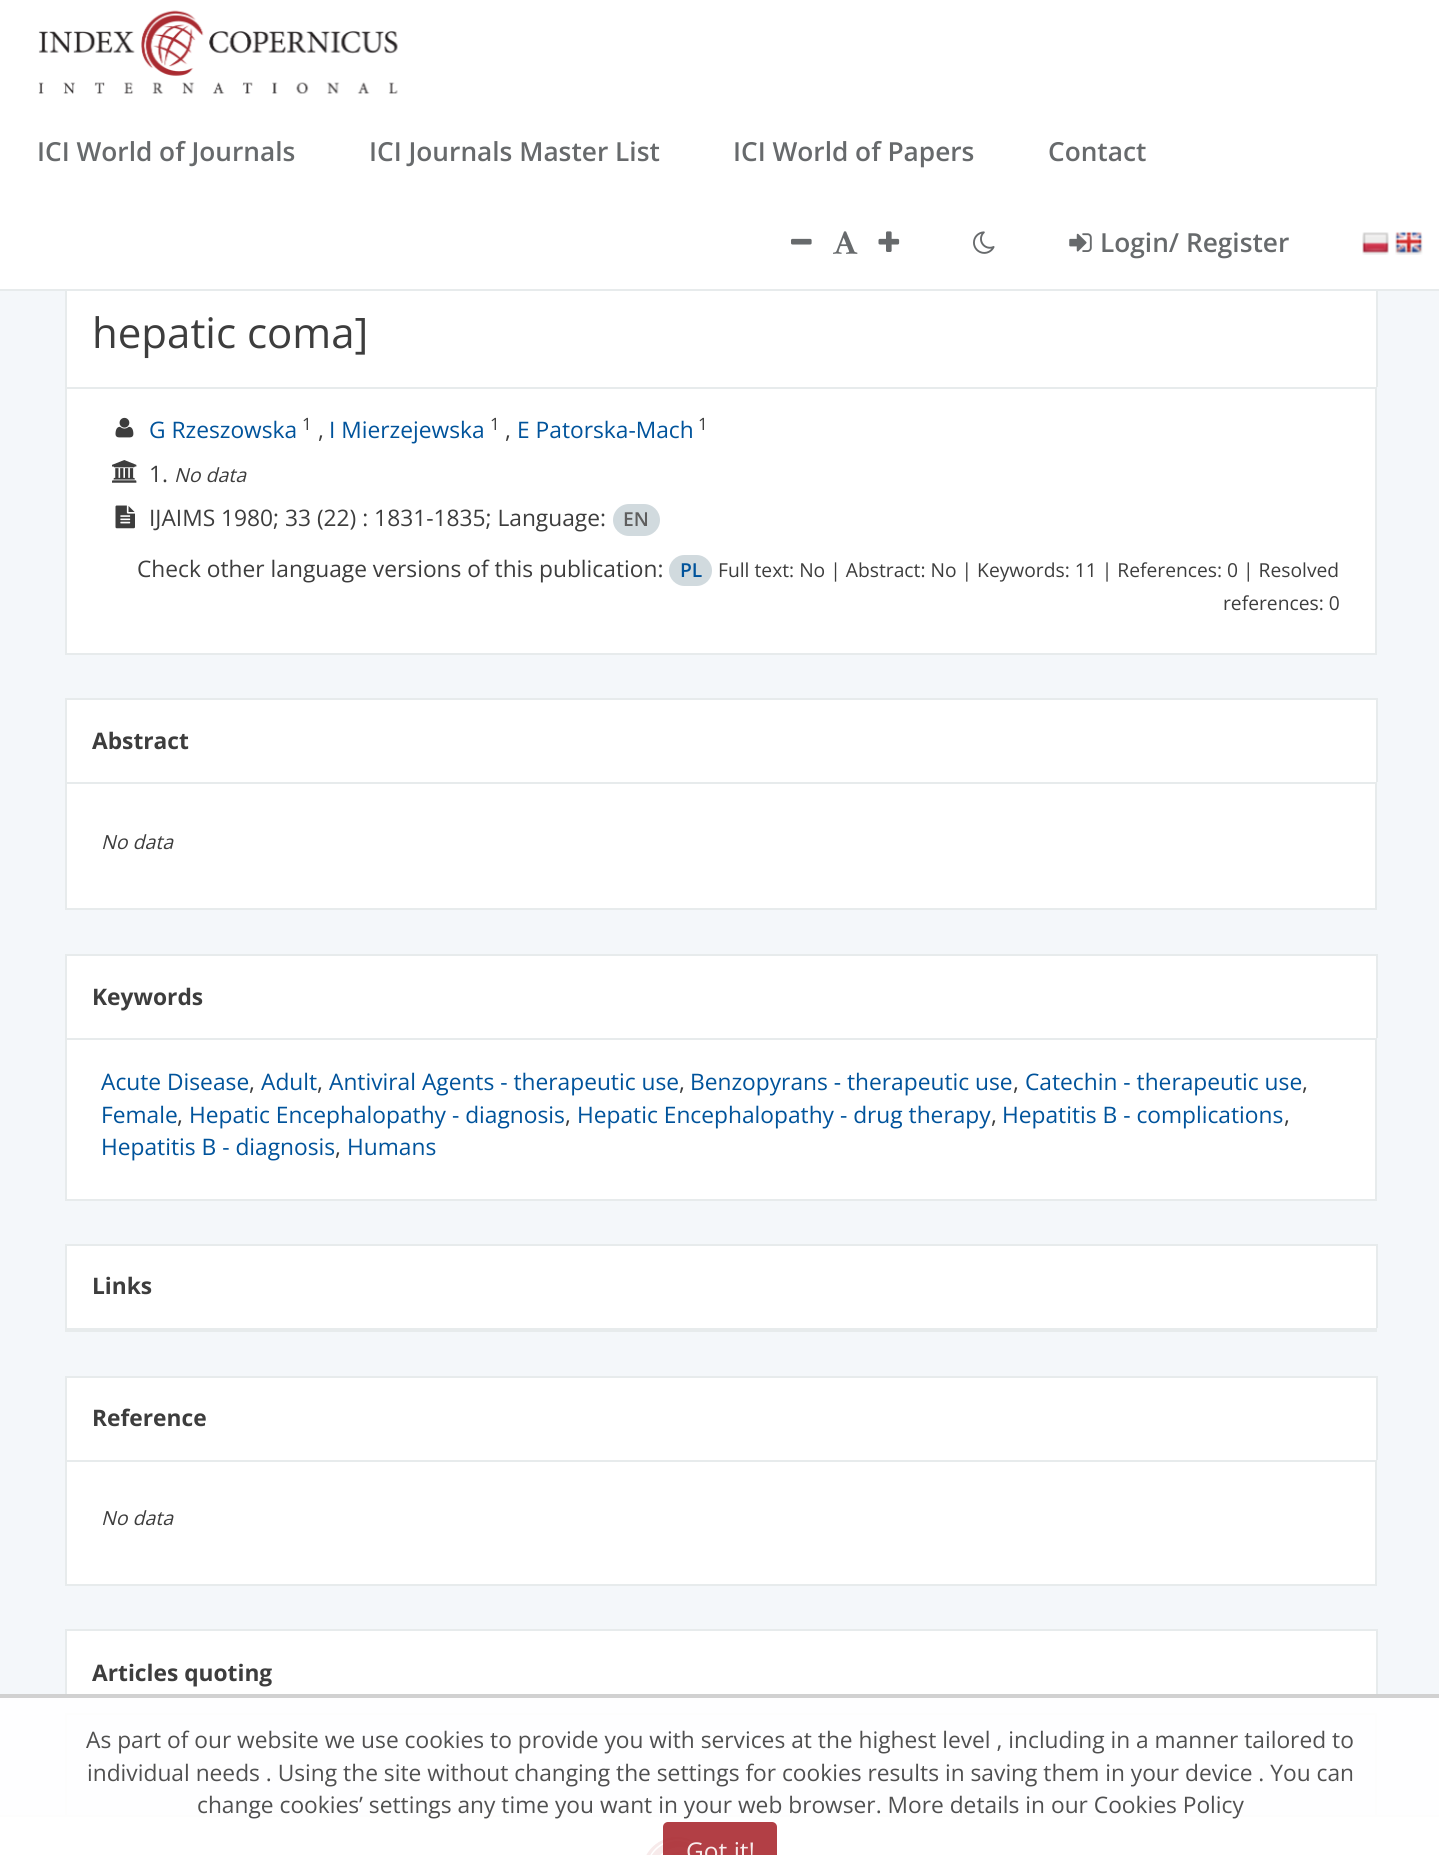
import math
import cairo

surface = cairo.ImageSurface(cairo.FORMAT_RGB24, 1439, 1855)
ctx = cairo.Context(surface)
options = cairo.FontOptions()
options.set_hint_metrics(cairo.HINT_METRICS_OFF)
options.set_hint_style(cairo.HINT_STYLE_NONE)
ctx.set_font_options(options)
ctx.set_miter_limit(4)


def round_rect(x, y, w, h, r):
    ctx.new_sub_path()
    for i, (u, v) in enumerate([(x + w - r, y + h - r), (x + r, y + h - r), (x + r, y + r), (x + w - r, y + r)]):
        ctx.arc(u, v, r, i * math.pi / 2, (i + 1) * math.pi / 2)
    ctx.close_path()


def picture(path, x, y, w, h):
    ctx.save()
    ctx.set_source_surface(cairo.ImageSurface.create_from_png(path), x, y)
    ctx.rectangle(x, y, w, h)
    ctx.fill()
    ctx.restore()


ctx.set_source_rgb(0.957, 0.965, 0.98)
ctx.paint()
ctx.set_source_rgb(1, 1, 1)
ctx.rectangle(0, 0, 1439, 289)
ctx.fill()
ctx.set_source_rgb(0.906, 0.918, 0.925)
ctx.rectangle(0, 289, 1439, 2)
ctx.fill()
picture("img1.png", 38, 10, 360, 84)
ctx.select_font_face("Open Sans SemiBold")
ctx.set_font_size(26.25)
ctx.set_source_rgb(0.404, 0.416, 0.424)
ctx.move_to(37, 161)
ctx.show_text("ICI World of Journals")
ctx.move_to(369, 161)
ctx.show_text("ICI Journals Master List")
ctx.move_to(733, 161)
ctx.show_text("ICI World of Papers")
ctx.move_to(1048, 161)
ctx.show_text("Contact")
picture("img2.png", 791, 238, 21, 7)
picture("img3.png", 833, 231, 25, 23)
picture("img4.png", 878, 231, 22, 21)
picture("img5.png", 973, 231, 22, 23)
picture("img6.png", 1069, 233, 23, 19)
ctx.move_to(1100, 252)
ctx.show_text("Login/ Register")
picture("img7.png", 1362, 232, 27, 23)
picture("img8.png", 1395, 231, 28, 24)
ctx.set_source_rgb(0.996, 0.996, 1)
ctx.rectangle(0, 1698, 1439, 117)
ctx.fill()
ctx.set_source_rgb(1, 1, 1)
ctx.rectangle(67, 291, 1309, 96)
ctx.fill()
ctx.set_source_rgb(0.906, 0.918, 0.925)
ctx.rectangle(1376, 291, 2, 96)
ctx.fill()
ctx.rectangle(65, 291, 2, 96)
ctx.fill()
ctx.select_font_face("Open Sans")
ctx.set_font_size(42)
ctx.set_source_rgb(0.239, 0.239, 0.239)
ctx.move_to(92, 348)
ctx.show_text("hepatic coma]")
ctx.set_source_rgb(1, 1, 1)
ctx.rectangle(66, 388, 1310, 266)
ctx.fill_preserve()
ctx.set_source_rgb(0.906, 0.918, 0.925)
ctx.stroke()
picture("img9.png", 115, 417, 19, 21)
ctx.set_font_size(22.75)
ctx.set_source_rgb(0, 0.325, 0.608)
ctx.move_to(149, 438)
ctx.show_text("G Rzeszowska")
ctx.set_font_size(17)
ctx.set_source_rgb(0.239, 0.239, 0.239)
ctx.move_to(302, 430)
ctx.show_text("1")
ctx.set_font_size(22.75)
ctx.move_to(318, 438)
ctx.show_text(",")
ctx.set_source_rgb(0, 0.325, 0.608)
ctx.move_to(329, 438)
ctx.show_text("I Mierzejewska")
ctx.set_font_size(17)
ctx.set_source_rgb(0.239, 0.239, 0.239)
ctx.move_to(490, 430)
ctx.show_text("1")
ctx.set_font_size(22.75)
ctx.move_to(505, 438)
ctx.show_text(",")
ctx.set_source_rgb(0, 0.325, 0.608)
ctx.move_to(517, 438)
ctx.show_text("E Patorska-Mach")
ctx.set_font_size(17)
ctx.set_source_rgb(0.239, 0.239, 0.239)
ctx.move_to(698, 430)
ctx.show_text("1")
picture("img10.png", 112, 460, 25, 23)
ctx.set_font_size(22.75)
ctx.move_to(149, 482)
ctx.show_text("1.")
ctx.select_font_face("Open Sans", cairo.FONT_SLANT_ITALIC)
ctx.set_font_size(19.5)
ctx.move_to(174, 482)
ctx.show_text("No data")
picture("img11.png", 115, 505, 20, 24)
ctx.select_font_face("Open Sans")
ctx.set_font_size(22.75)
ctx.move_to(149, 526)
ctx.show_text("IJAIMS 1980; 33 (22) : 1831-1835; Language:")
ctx.set_source_rgb(0.82, 0.855, 0.871)
round_rect(613, 504, 47, 32, 16)
ctx.fill()
ctx.select_font_face("Open Sans SemiBold")
ctx.set_font_size(19.25)
ctx.set_source_rgb(0.369, 0.369, 0.369)
ctx.move_to(623, 526)
ctx.show_text("EN")
ctx.select_font_face("Open Sans")
ctx.set_font_size(22.75)
ctx.set_source_rgb(0.239, 0.239, 0.239)
ctx.move_to(137, 577)
ctx.show_text("Check other language versions of this publication:")
ctx.set_source_rgb(0.82, 0.855, 0.871)
round_rect(669, 555, 43, 31, 15.5)
ctx.fill()
ctx.select_font_face("Open Sans SemiBold")
ctx.set_font_size(19.25)
ctx.set_source_rgb(0, 0.325, 0.608)
ctx.move_to(680, 577)
ctx.show_text("PL")
ctx.select_font_face("Open Sans")
ctx.set_source_rgb(0.239, 0.239, 0.239)
ctx.move_to(718, 577)
ctx.show_text("Full text: No | Abstract: No | Keywords: 11 | References: 0 | Resolved")
ctx.move_to(1223, 610)
ctx.show_text("references: 0")
ctx.set_source_rgb(1, 1, 1)
ctx.rectangle(67, 700, 1309, 82)
ctx.fill()
ctx.set_source_rgb(0.906, 0.918, 0.925)
ctx.rectangle(65, 698, 1312, 2)
ctx.fill()
ctx.rectangle(1376, 698, 2, 84)
ctx.fill()
ctx.rectangle(65, 698, 2, 84)
ctx.fill()
ctx.select_font_face("Open Sans", cairo.FONT_SLANT_NORMAL, cairo.FONT_WEIGHT_BOLD)
ctx.set_font_size(22.75)
ctx.set_source_rgb(0.239, 0.239, 0.239)
ctx.move_to(92, 749)
ctx.show_text("Abstract")
ctx.set_source_rgb(1, 1, 1)
ctx.rectangle(66, 783, 1310, 126)
ctx.fill_preserve()
ctx.set_source_rgb(0.906, 0.918, 0.925)
ctx.stroke()
ctx.select_font_face("Open Sans", cairo.FONT_SLANT_ITALIC)
ctx.set_font_size(19.5)
ctx.set_source_rgb(0.239, 0.239, 0.239)
ctx.move_to(101, 849)
ctx.show_text("No data")
ctx.set_source_rgb(1, 1, 1)
ctx.rectangle(67, 956, 1309, 82)
ctx.fill()
ctx.set_source_rgb(0.906, 0.918, 0.925)
ctx.rectangle(65, 954, 1312, 2)
ctx.fill()
ctx.rectangle(1376, 954, 2, 84)
ctx.fill()
ctx.rectangle(65, 954, 2, 84)
ctx.fill()
ctx.select_font_face("Open Sans", cairo.FONT_SLANT_NORMAL, cairo.FONT_WEIGHT_BOLD)
ctx.set_font_size(22.75)
ctx.set_source_rgb(0.239, 0.239, 0.239)
ctx.move_to(92, 1005)
ctx.show_text("Keywords")
ctx.set_source_rgb(1, 1, 1)
ctx.rectangle(66, 1039, 1310, 161)
ctx.fill_preserve()
ctx.set_source_rgb(0.906, 0.918, 0.925)
ctx.stroke()
ctx.select_font_face("Open Sans")
ctx.set_source_rgb(0, 0.325, 0.608)
ctx.move_to(101, 1090)
ctx.show_text("Acute Disease")
ctx.set_source_rgb(0.239, 0.239, 0.239)
ctx.move_to(249, 1090)
ctx.show_text(",")
ctx.set_source_rgb(0, 0.325, 0.608)
ctx.move_to(261, 1090)
ctx.show_text("Adult")
ctx.set_source_rgb(0.239, 0.239, 0.239)
ctx.move_to(317, 1090)
ctx.show_text(",")
ctx.set_source_rgb(0, 0.325, 0.608)
ctx.move_to(329, 1090)
ctx.show_text("Antiviral Agents - therapeutic use")
ctx.set_source_rgb(0.239, 0.239, 0.239)
ctx.move_to(679, 1090)
ctx.show_text(",")
ctx.set_source_rgb(0, 0.325, 0.608)
ctx.move_to(690, 1090)
ctx.show_text("Benzopyrans - therapeutic use")
ctx.set_source_rgb(0.239, 0.239, 0.239)
ctx.move_to(1013, 1090)
ctx.show_text(",")
ctx.set_source_rgb(0, 0.325, 0.608)
ctx.move_to(1025, 1090)
ctx.show_text("Catechin - therapeutic use")
ctx.set_source_rgb(0.239, 0.239, 0.239)
ctx.move_to(1302, 1090)
ctx.show_text(",")
ctx.set_source_rgb(0, 0.325, 0.608)
ctx.move_to(101, 1123)
ctx.show_text("Female")
ctx.set_source_rgb(0.239, 0.239, 0.239)
ctx.move_to(177, 1123)
ctx.show_text(",")
ctx.set_source_rgb(0, 0.325, 0.608)
ctx.move_to(189, 1123)
ctx.show_text("Hepatic Encephalopathy - diagnosis")
ctx.set_source_rgb(0.239, 0.239, 0.239)
ctx.move_to(565, 1123)
ctx.show_text(",")
ctx.set_source_rgb(0, 0.325, 0.608)
ctx.move_to(577, 1123)
ctx.show_text("Hepatic Encephalopathy - drug therapy")
ctx.set_source_rgb(0.239, 0.239, 0.239)
ctx.move_to(991, 1123)
ctx.show_text(",")
ctx.set_source_rgb(0, 0.325, 0.608)
ctx.move_to(1002, 1123)
ctx.show_text("Hepatitis B - complications")
ctx.set_source_rgb(0.239, 0.239, 0.239)
ctx.move_to(1284, 1123)
ctx.show_text(",")
ctx.set_source_rgb(0, 0.325, 0.608)
ctx.move_to(101, 1155)
ctx.show_text("Hepatitis B - diagnosis")
ctx.set_source_rgb(0.239, 0.239, 0.239)
ctx.move_to(335, 1155)
ctx.show_text(",")
ctx.set_source_rgb(0, 0.325, 0.608)
ctx.move_to(347, 1155)
ctx.show_text("Humans")
ctx.set_source_rgb(1, 1, 1)
ctx.rectangle(67, 1246, 1309, 82)
ctx.fill()
ctx.set_source_rgb(0.906, 0.918, 0.925)
ctx.rectangle(65, 1244, 1312, 2)
ctx.fill()
ctx.rectangle(1376, 1244, 2, 84)
ctx.fill()
ctx.rectangle(65, 1244, 2, 84)
ctx.fill()
ctx.select_font_face("Open Sans", cairo.FONT_SLANT_NORMAL, cairo.FONT_WEIGHT_BOLD)
ctx.set_source_rgb(0.239, 0.239, 0.239)
ctx.move_to(92, 1294)
ctx.show_text("Links")
ctx.set_source_rgb(0.906, 0.918, 0.925)
ctx.rectangle(65, 1328, 1312, 4)
ctx.fill()
ctx.set_source_rgb(1, 1, 1)
ctx.rectangle(67, 1378, 1309, 82)
ctx.fill()
ctx.set_source_rgb(0.906, 0.918, 0.925)
ctx.rectangle(65, 1376, 1312, 2)
ctx.fill()
ctx.rectangle(1376, 1376, 2, 84)
ctx.fill()
ctx.rectangle(65, 1376, 2, 84)
ctx.fill()
ctx.set_source_rgb(0.239, 0.239, 0.239)
ctx.move_to(92, 1426)
ctx.show_text("Reference")
ctx.set_source_rgb(1, 1, 1)
ctx.rectangle(66, 1461, 1310, 124)
ctx.fill_preserve()
ctx.set_source_rgb(0.906, 0.918, 0.925)
ctx.stroke()
ctx.select_font_face("Open Sans", cairo.FONT_SLANT_ITALIC)
ctx.set_font_size(19.5)
ctx.set_source_rgb(0.239, 0.239, 0.239)
ctx.move_to(101, 1525)
ctx.show_text("No data")
ctx.set_source_rgb(1, 1, 1)
ctx.rectangle(67, 1631, 1309, 63)
ctx.fill()
ctx.set_source_rgb(0.906, 0.918, 0.925)
ctx.rectangle(65, 1629, 1312, 2)
ctx.fill()
ctx.rectangle(1376, 1629, 2, 65)
ctx.fill()
ctx.set_source_rgb(0.992, 0.992, 0.992)
ctx.rectangle(1376, 1694, 2, 4)
ctx.fill()
ctx.set_source_rgb(0.906, 0.918, 0.925)
ctx.rectangle(65, 1629, 2, 65)
ctx.fill()
ctx.set_source_rgb(0.992, 0.992, 0.992)
ctx.rectangle(65, 1694, 2, 4)
ctx.fill()
ctx.select_font_face("Open Sans", cairo.FONT_SLANT_NORMAL, cairo.FONT_WEIGHT_BOLD)
ctx.set_font_size(22.75)
ctx.set_source_rgb(0.239, 0.239, 0.239)
ctx.move_to(92, 1681)
ctx.show_text("Articles quoting")
ctx.rectangle(66, 1714, 1310, 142)
ctx.set_source_rgb(0.992, 0.992, 0.992)
ctx.stroke()
ctx.set_source_rgb(1, 1, 1)
ctx.rectangle(0, 1817, 1439, 38)
ctx.fill()
ctx.set_source_rgb(0.992, 0.992, 0.992)
ctx.rectangle(0, 1815, 1439, 2)
ctx.fill()
picture("img12.png", 646, 1837, 58, 18)
ctx.set_source_rgb(0.82, 0.82, 0.82)
ctx.rectangle(0, 1694, 1439, 4)
ctx.fill()
ctx.select_font_face("Open Sans")
ctx.set_source_rgb(0.314, 0.314, 0.314)
ctx.move_to(86, 1748)
ctx.show_text("As part of our website we use cookies to provide you with services at the highest level , including in a manner tailored to")
ctx.move_to(87, 1781)
ctx.show_text("individual needs . Using the site without changing the settings for cookies results in saving them in your device . You can")
ctx.move_to(197, 1813)
ctx.show_text("change cookies’ settings any time you want in your web browser. More details in our Cookies Policy")
ctx.set_source_rgba(0.667, 0.169, 0.192, 0.9)
round_rect(663, 1822, 114, 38, 5)
ctx.fill()
ctx.set_font_size(24.5)
ctx.set_source_rgb(0.969, 0.925, 0.925)
ctx.move_to(686, 1860)
ctx.show_text("Got it!")
surface.write_to_png("page.png")
